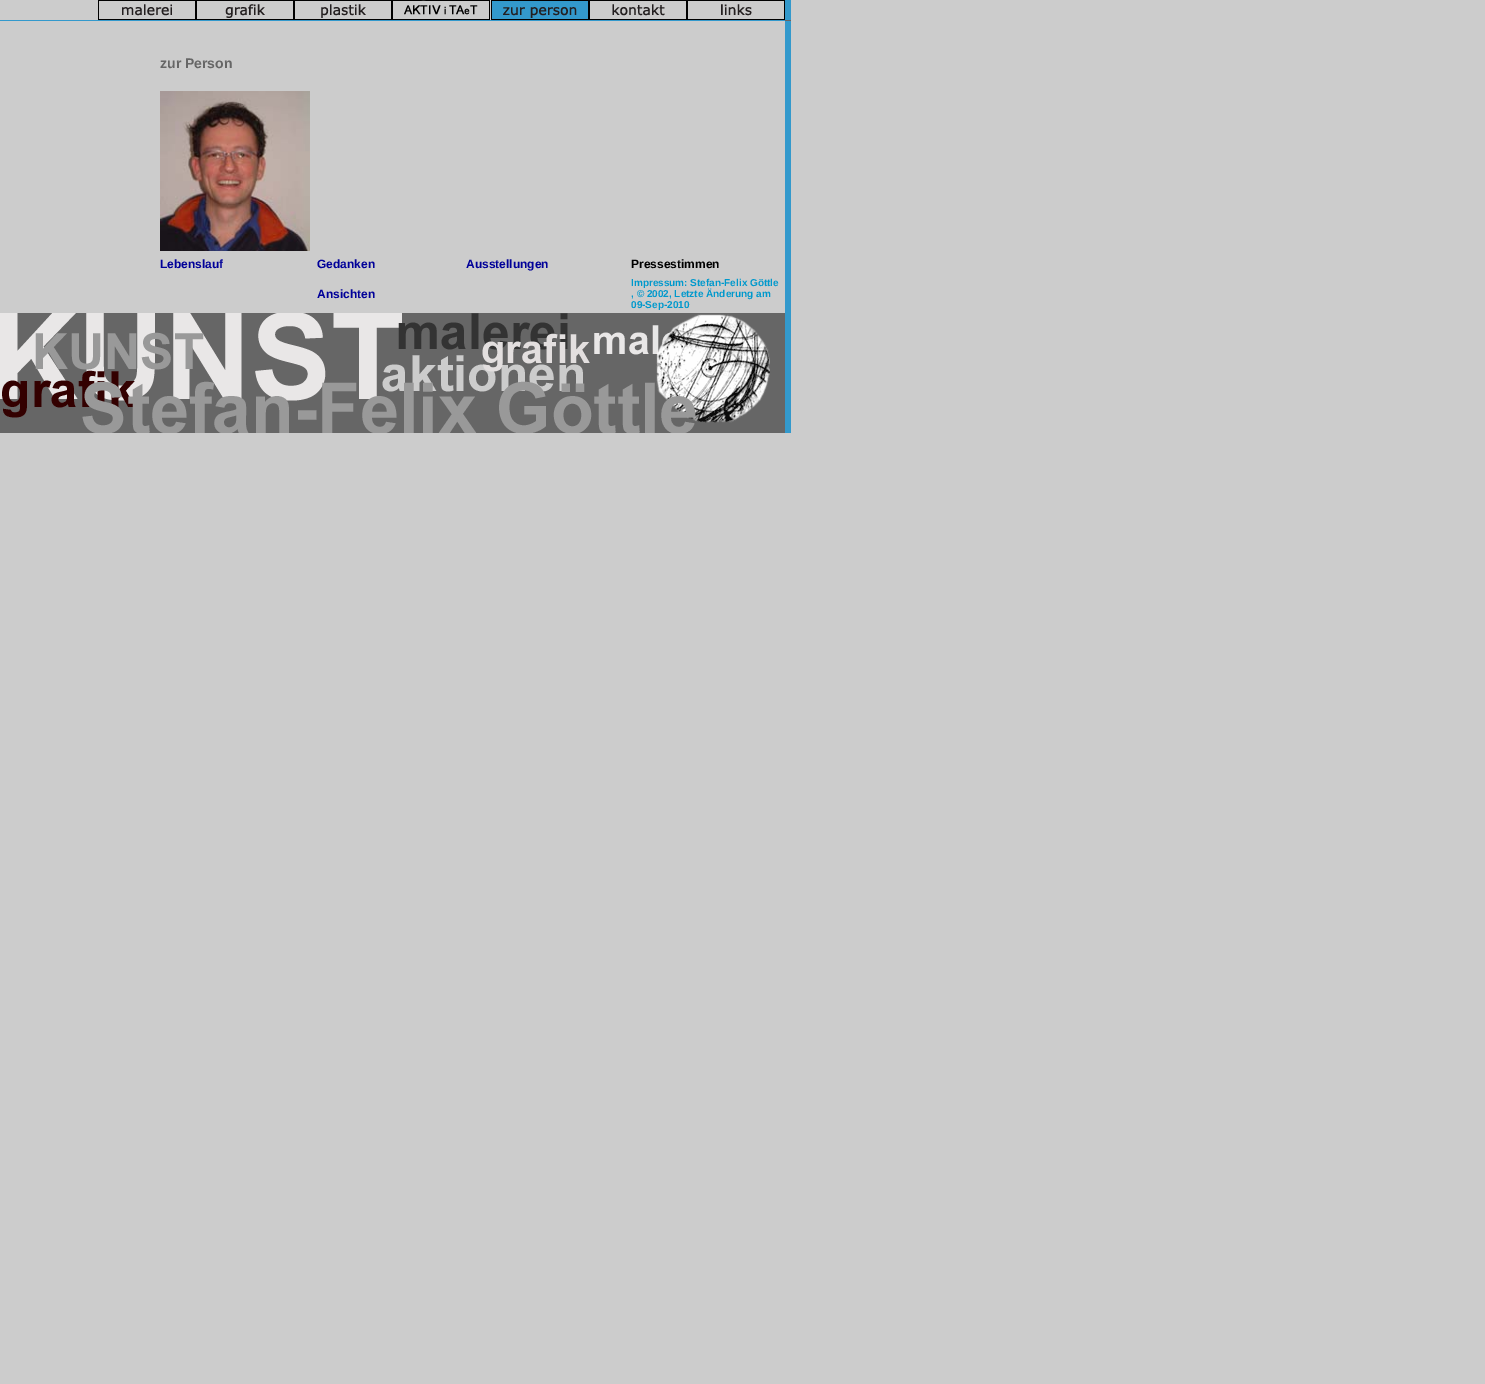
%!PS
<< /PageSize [1485 1384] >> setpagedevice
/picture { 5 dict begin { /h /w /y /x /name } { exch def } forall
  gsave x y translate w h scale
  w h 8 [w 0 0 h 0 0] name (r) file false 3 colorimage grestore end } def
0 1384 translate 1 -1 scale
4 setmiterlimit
0.8 setgray
0 0 1485 1384 rectfill
(img1.rgb) 98 0 98 20 picture
(img2.rgb) 196 0 98 20 picture
(img3.rgb) 294 0 98 20 picture
(img4.rgb) 392 0 98 20 picture
(img5.rgb) 491 0 98 20 picture
(img6.rgb) 589 0 98 20 picture
(img7.rgb) 687 0 98 20 picture
0.2 0.6 0.8 setrgbcolor
785 0 6 20 rectfill
0 20 785 1 rectfill
0.4 setgray
785 20 6 1 rectfill
/LiberationSans-Bold [14 0 0 -14 0 0] selectfont
160 68 moveto (zur Person) show
(img8.rgb) 160 91 150 160 picture
/LiberationSans-Bold [12 0 0 -12 0 0] selectfont
0 0 0.6 setrgbcolor
160 268 moveto (Lebenslauf) show
317 268 moveto (Gedanken) show
466 268 moveto (Ausstellungen) show
0 setgray
631 268 moveto (Pressestimmen) show
0 0 0.6 setrgbcolor
317 298 moveto (Ansichten) show
/LiberationSans-Bold [10 0 0 -10 0 0] selectfont
0 0.6 0.8 setrgbcolor
631 286 moveto (Impressum: Stefan-Felix Göttle) show
631 297 moveto (, © 2002, Letzte Änderung am) show
631 308 moveto (09-Sep-2010) show
0.2 0.6 0.8 setrgbcolor
785 21 6 412 rectfill
0.4 setgray
654 313 131 120 rectfill
(img9.rgb) 0 313 654 120 picture
(img10.rgb) 654 314 116 119 picture
showpage
